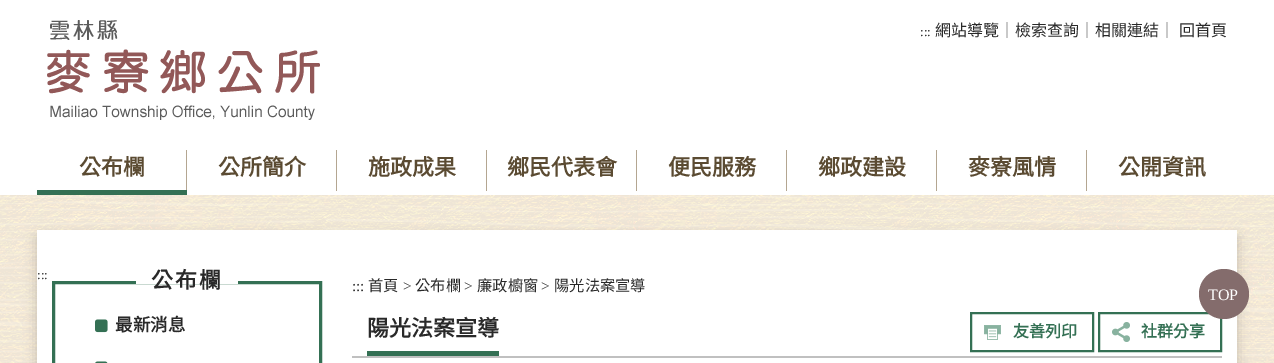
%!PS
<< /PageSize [1274 363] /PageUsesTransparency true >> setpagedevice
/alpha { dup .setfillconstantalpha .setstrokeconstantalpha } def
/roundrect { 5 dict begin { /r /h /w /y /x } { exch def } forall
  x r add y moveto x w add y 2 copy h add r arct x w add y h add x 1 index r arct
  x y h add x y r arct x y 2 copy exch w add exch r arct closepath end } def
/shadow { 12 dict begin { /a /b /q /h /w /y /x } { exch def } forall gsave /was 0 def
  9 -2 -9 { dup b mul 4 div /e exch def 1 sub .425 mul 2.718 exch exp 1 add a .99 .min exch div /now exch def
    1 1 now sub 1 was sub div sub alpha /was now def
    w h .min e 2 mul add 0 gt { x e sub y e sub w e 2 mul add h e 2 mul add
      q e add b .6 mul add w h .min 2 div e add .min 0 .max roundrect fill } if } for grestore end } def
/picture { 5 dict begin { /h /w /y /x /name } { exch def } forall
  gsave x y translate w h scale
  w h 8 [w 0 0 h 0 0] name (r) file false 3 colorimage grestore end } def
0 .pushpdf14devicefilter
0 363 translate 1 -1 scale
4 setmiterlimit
1 setgray
0 0 1274 363 rectfill
(img1.rgb) 0 195 1274 168 picture
(img2.rgb) 47 20 273 100 picture
/LiberationSerif-Regular [13 0 0 -13 0 0] selectfont
0.161 setgray
920 36 moveto (:::) show
/NotoSansCJKTC-Regular [16 0 0 -16 0 0] selectfont
935 36 moveto (網站導覽) show
0.2 setgray
999 36 moveto (｜) show
0.161 setgray
1015 36 moveto (檢索查詢) show
0.2 setgray
1079 36 moveto (｜) show
0.161 setgray
1095 36 moveto (相關連結) show
0.2 setgray
1159 36 moveto (｜) show
0.161 setgray
1179 36 moveto (回首頁) show
0.706 0.651 0.569 setrgbcolor
186 150 1 41 rectfill
0.204 0.439 0.329 setrgbcolor
37 190 150 5 rectfill
/NotoSansCJKTC-Bold [22 0 0 -22 0 0] selectfont
0.357 0.294 0.196 setrgbcolor
79 175 moveto (公布欄) show
0.706 0.651 0.569 setrgbcolor
336 150 1 41 rectfill
0.357 0.294 0.196 setrgbcolor
218 175 moveto (公所簡介) show
0.706 0.651 0.569 setrgbcolor
486 150 1 41 rectfill
0.357 0.294 0.196 setrgbcolor
368 175 moveto (施政成果) show
0.706 0.651 0.569 setrgbcolor
636 150 1 41 rectfill
0.357 0.294 0.196 setrgbcolor
507 175 moveto (鄉民代表會) show
0.706 0.651 0.569 setrgbcolor
786 150 1 41 rectfill
0.357 0.294 0.196 setrgbcolor
668 175 moveto (便民服務) show
0.706 0.651 0.569 setrgbcolor
936 150 1 41 rectfill
0.357 0.294 0.196 setrgbcolor
818 175 moveto (鄉政建設) show
0.706 0.651 0.569 setrgbcolor
1086 150 1 41 rectfill
0.357 0.294 0.196 setrgbcolor
968 175 moveto (麥寮風情) show
1118 175 moveto (公開資訊) show
0.706 0.678 0.635 setrgbcolor
37 237 1200 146 0 6.5 0.75 shadow
1 setgray
37 230 1200 133 rectfill
/LiberationSerif-Regular [13 0 0 -13 0 0] selectfont
0.2 setgray
37 279 moveto (:::) show
0.204 0.439 0.329 setrgbcolor
3 setlinewidth
53.5 282.5 267 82 rectstroke
1 setgray
136 281 102 3 rectfill
/NotoSansCJKTC-Bold [22 0 0 -22 0 0] selectfont
0.161 setgray
151 288 moveto 2 0 (公布欄) ashow
(img3.rgb) 95 319 13 14 picture
/NotoSansCJKTC-Bold [17.5 0 0 -17.5 0 0] selectfont
115 331 moveto (最新消息) show
(img4.rgb) 95 361 13 2 picture
/LiberationSerif-Regular [15.25 0 0 -15.25 0 0] selectfont
352 291 moveto (:::) show
/NotoSansCJKTC-Regular [15.25 0 0 -15.25 0 0] selectfont
368 291 moveto (首頁) show
/LiberationSerif-Regular [15.25 0 0 -15.25 0 0] selectfont
0.2 setgray
403 291 moveto (>) show
/NotoSansCJKTC-Regular [15.25 0 0 -15.25 0 0] selectfont
0.161 setgray
415 291 moveto (公布欄) show
/LiberationSerif-Regular [15.25 0 0 -15.25 0 0] selectfont
0.2 setgray
464 291 moveto (>) show
/NotoSansCJKTC-Regular [15.25 0 0 -15.25 0 0] selectfont
0.161 setgray
477 291 moveto (廉政櫥窗) show
/LiberationSerif-Regular [15.25 0 0 -15.25 0 0] selectfont
0.2 setgray
541 291 moveto (>) show
/NotoSansCJKTC-Regular [15.25 0 0 -15.25 0 0] selectfont
0.161 setgray
554 291 moveto (陽光法案宣導) show
0.753 setgray
352 356 870 2 rectfill
0.204 0.439 0.329 setrgbcolor
367 351 132 5 rectfill
/NotoSansCJKTC-Bold [22 0 0 -22 0 0] selectfont
0.161 setgray
367 336 moveto (陽光法案宣導) show
0.204 0.439 0.329 setrgbcolor
2 setlinewidth
971 313 122 38 rectstroke
(img5.rgb) 984 325 17 15 picture
/NotoSansCJKTC-Bold [16 0 0 -16 0 0] selectfont
1013 337 moveto (友善列印) show
1099 313 122 38 rectstroke
(img6.rgb) 1112 322 18 20 picture
1141 337 moveto (社群分享) show
0.518 0.424 0.424 setrgbcolor
newpath 1224 294 25 0 360 arc closepath fill
/LiberationSerif-Regular [16 0 0 -16 0 0] selectfont
1 setgray
1208 300 moveto (TOP) show
.poppdf14devicefilter showpage
